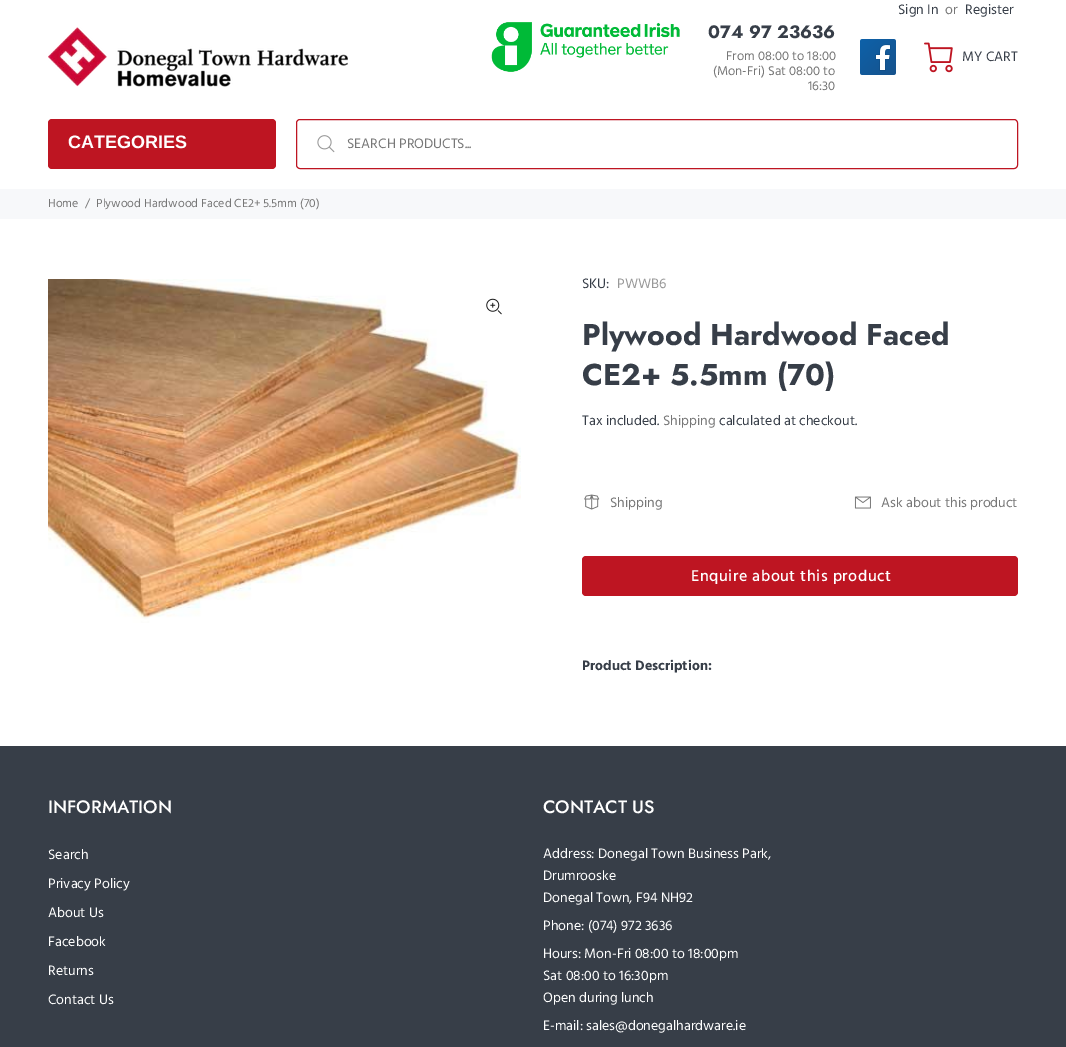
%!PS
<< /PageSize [1066 1047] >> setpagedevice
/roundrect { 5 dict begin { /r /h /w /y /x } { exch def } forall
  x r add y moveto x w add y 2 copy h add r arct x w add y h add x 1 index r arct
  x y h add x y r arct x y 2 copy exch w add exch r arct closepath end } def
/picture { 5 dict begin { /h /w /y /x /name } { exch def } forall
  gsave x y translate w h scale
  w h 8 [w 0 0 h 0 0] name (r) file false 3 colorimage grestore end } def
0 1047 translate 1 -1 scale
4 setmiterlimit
1 setgray
0 0 1066 1047 rectfill
/Hind-Regular [14 0 0 -14 0 0] selectfont
0.216 0.243 0.282 setrgbcolor
898 14 moveto (Sign In) show
0.467 setgray
945 14 moveto (or) show
0.216 0.243 0.282 setrgbcolor
965 14 moveto (Register) show
(img1.rgb) 48 27 300 60 picture
(img2.rgb) 491 22 189 50 picture
/Jost-Bold [18 0 0 -18 0 0] selectfont
708 38 moveto (074 97 23636) show
/Hind-Regular [13 0 0 -13 0 0] selectfont
0.467 setgray
726 60 moveto (From 08:00 to 18:00) show
713 75 moveto (\(Mon-Fri\) Sat 08:00 to) show
808 90 moveto (16:30) show
(img3.rgb) 860 39 36 36 picture
(img4.rgb) 924 42 29 31 picture
/Hind-Regular [14 0 0 -14 0 0] selectfont
0.216 0.243 0.282 setrgbcolor
962 61 moveto (MY CART) show
0.745 0.082 0.133 setrgbcolor
48 119 228 50 4 roundrect fill
/LiberationSans-Bold [18 0 0 -18 0 0] selectfont
1 setgray
68 148 moveto (CATEGORIES) show
0.745 0.082 0.133 setrgbcolor
296.5 119.5 721 49 3.5 roundrect stroke
(img5.rgb) 317 135 18 18 picture
/Hind-Regular [14 0 0 -14 0 0] selectfont
0.467 setgray
347 148 moveto (SEARCH PRODUCTS...) show
0.969 0.973 0.98 setrgbcolor
0 189 1066 30 rectfill
/Hind-Regular [12 0 0 -12 0 0] selectfont
0.467 setgray
48 207 moveto (Home) show
85 207 moveto (/) show
96 207 moveto (Plywood Hardwood Faced CE2+ 5.5mm \(70\)) show
(img6.rgb) 48 279 473 344 picture
(img7.rgb) 486 298 16 17 picture
/Hind-Regular [14 0 0 -14 0 0] selectfont
0.216 0.243 0.282 setrgbcolor
582 288 moveto (SKU:) show
0.6 setgray
617 288 moveto (PWWB6) show
/Jost-Bold [30 0 0 -30 0 0] selectfont
0.216 0.243 0.282 setrgbcolor
582 345 moveto (Plywood Hardwood Faced) show
582 385 moveto (CE2+ 5.5mm \(70\)) show
/Hind-Regular [14 0 0 -14 0 0] selectfont
582 425 moveto (Tax included.) show
0.467 setgray
663 425 moveto (Shipping) show
0.216 0.243 0.282 setrgbcolor
719 425 moveto (calculated at checkout.) show
(img8.rgb) 584 494 16 16 picture
0.467 setgray
610 507 moveto (Shipping) show
(img9.rgb) 854 496 17 13 picture
881 507 moveto (Ask about this product) show
0.745 0.082 0.133 setrgbcolor
582 556 436 40 4 roundrect fill
/Hind-Medium [16 0 0 -16 0 0] selectfont
1 setgray
691 581 moveto 0.55 0 (Enquire about this product) ashow
/Hind-Bold [14 0 0 -14 0 0] selectfont
0.216 0.243 0.282 setrgbcolor
582 670 moveto (Product Description:) show
0 746 1066 301 rectfill
/Jost-Medium [18 0 0 -18 0 0] selectfont
1 setgray
48 813 moveto (INFORMATION) show
/Hind-Regular [14 0 0 -14 0 0] selectfont
48 859 moveto (Search) show
48 888 moveto (Privacy Policy) show
48 917 moveto (About Us) show
48 946 moveto (Facebook) show
48 975 moveto (Returns) show
48 1004 moveto (Contact Us) show
/Jost-Medium [18 0 0 -18 0 0] selectfont
543 813 moveto (CONTACT US) show
/Hind-Regular [14 0 0 -14 0 0] selectfont
543 858 moveto (Address: Donegal Town Business Park,) show
543 880 moveto (Drumrooske) show
543 902 moveto (Donegal Town, F94 NH92) show
543 930 moveto (Phone: \(074\) 972 3636) show
543 958 moveto (Hours: Mon-Fri 08:00 to 18:00pm) show
543 980 moveto (Sat 08:00 to 16:30pm) show
543 1002 moveto (Open during lunch) show
543 1030 moveto (E-mail:) show
586 1030 moveto (sales@donegalhardware.ie) show
showpage
